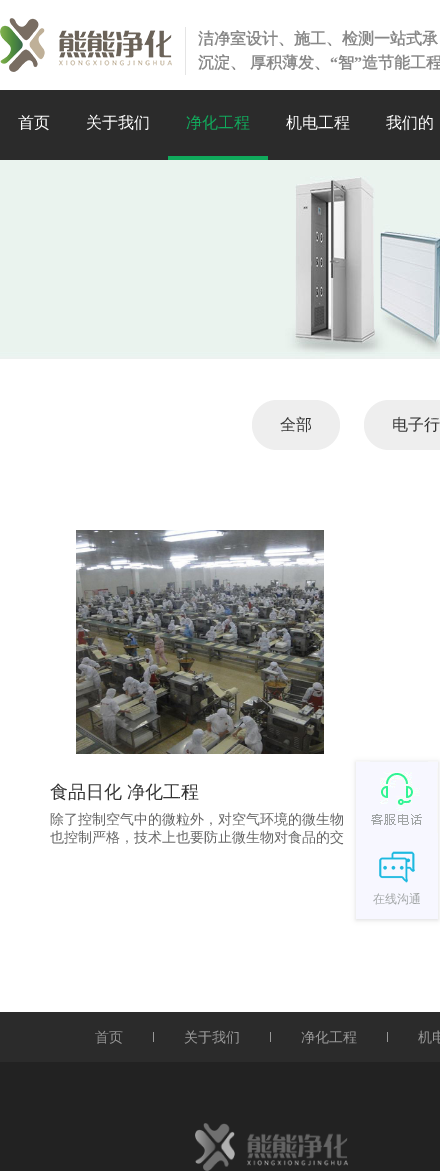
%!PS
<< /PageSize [440 1171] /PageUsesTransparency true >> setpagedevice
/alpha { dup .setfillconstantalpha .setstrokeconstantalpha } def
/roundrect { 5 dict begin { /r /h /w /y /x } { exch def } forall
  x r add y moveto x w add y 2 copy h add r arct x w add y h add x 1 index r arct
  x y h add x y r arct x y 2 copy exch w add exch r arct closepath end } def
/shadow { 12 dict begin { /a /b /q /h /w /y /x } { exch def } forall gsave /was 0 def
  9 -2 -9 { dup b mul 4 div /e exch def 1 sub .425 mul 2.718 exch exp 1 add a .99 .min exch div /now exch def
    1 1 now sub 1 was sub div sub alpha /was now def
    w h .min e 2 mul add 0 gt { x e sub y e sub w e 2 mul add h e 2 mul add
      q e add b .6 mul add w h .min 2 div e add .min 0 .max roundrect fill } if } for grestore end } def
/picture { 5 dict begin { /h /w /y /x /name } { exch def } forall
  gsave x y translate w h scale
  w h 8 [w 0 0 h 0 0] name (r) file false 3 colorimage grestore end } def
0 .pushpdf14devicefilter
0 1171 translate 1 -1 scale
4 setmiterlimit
1 setgray
0 0 440 1171 rectfill
(img1.rgb) 0 18 172 54 picture
0.898 setgray
185 27 1 48 rectfill
/WenQuanYiZenHei-Bold [16 0 0 -16 0 0] selectfont
0.533 setgray
198 44 moveto (洁净室设计、施工、检测一站式承) show
198 68 moveto -1 0 32 (沉淀、 厚积薄发、) widthshow
/LiberationSerif-Bold [16 0 0 -16 0 0] selectfont
330 68 moveto (“) show
/WenQuanYiZenHei-Bold [16 0 0 -16 0 0] selectfont
338 68 moveto (智) show
/LiberationSerif-Bold [16 0 0 -16 0 0] selectfont
354 68 moveto (”) show
/WenQuanYiZenHei-Bold [16 0 0 -16 0 0] selectfont
362 68 moveto (造节能工程) show
0.169 setgray
0 90 440 70 rectfill
/WenQuanYiZenHei-Medium [16 0 0 -16 0 0] selectfont
1 setgray
18 128 moveto (首页) show
86 128 moveto (关于我们) show
0.063 0.667 0.361 setrgbcolor
168 156 100 4 rectfill
186 128 moveto (净化工程) show
1 setgray
286 128 moveto (机电工程) show
386 128 moveto (我们的) show
(img2.rgb) 0 160 440 199 picture
0.933 setgray
252 400 88 50 25 roundrect fill
0.2 setgray
280 430 moveto (全部) show
0.933 setgray
364 400 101 50 25 roundrect fill
0.2 setgray
392 430 moveto (电子行) show
(img3.rgb) 76 530 248 224 picture
/WenQuanYiZenHei-Medium [18 0 0 -18 0 0] selectfont
50 798 moveto (食品日化 净化工程) show
/WenQuanYiZenHei-Medium [14 0 0 -14 0 0] selectfont
0.4 setgray
50 824 moveto (除了控制空气中的微粒外，对空气环境的微生物) show
50 842 moveto (也控制严格，技术上也要防止微生物对食品的交) show
0.867 setgray
356 762 82 158 0 2.5 1 shadow
(img4.rgb) 356 761 82 76 picture
0.969 0.969 1 setrgbcolor
356 837 82 82 rectfill
(img5.rgb) 379 851 36 32 picture
/WenQuanYiZenHei-Medium [12 0 0 -12 0 0] selectfont
0.631 0.647 0.647 setrgbcolor
373 903 moveto (在线沟通) show
0.169 setgray
0 1012 440 50 rectfill
/WenQuanYiZenHei-Medium [14 0 0 -14 0 0] selectfont
0.6 setgray
95 1042 moveto (首页) show
153 1032 1 10 rectfill
184 1042 moveto (关于我们) show
270 1032 1 10 rectfill
301 1042 moveto (净化工程) show
387 1032 1 10 rectfill
418 1042 moveto (机电) show
0.133 setgray
0 1062 440 109 rectfill
(img6.rgb) 195 1123 153 48 picture
.poppdf14devicefilter showpage
